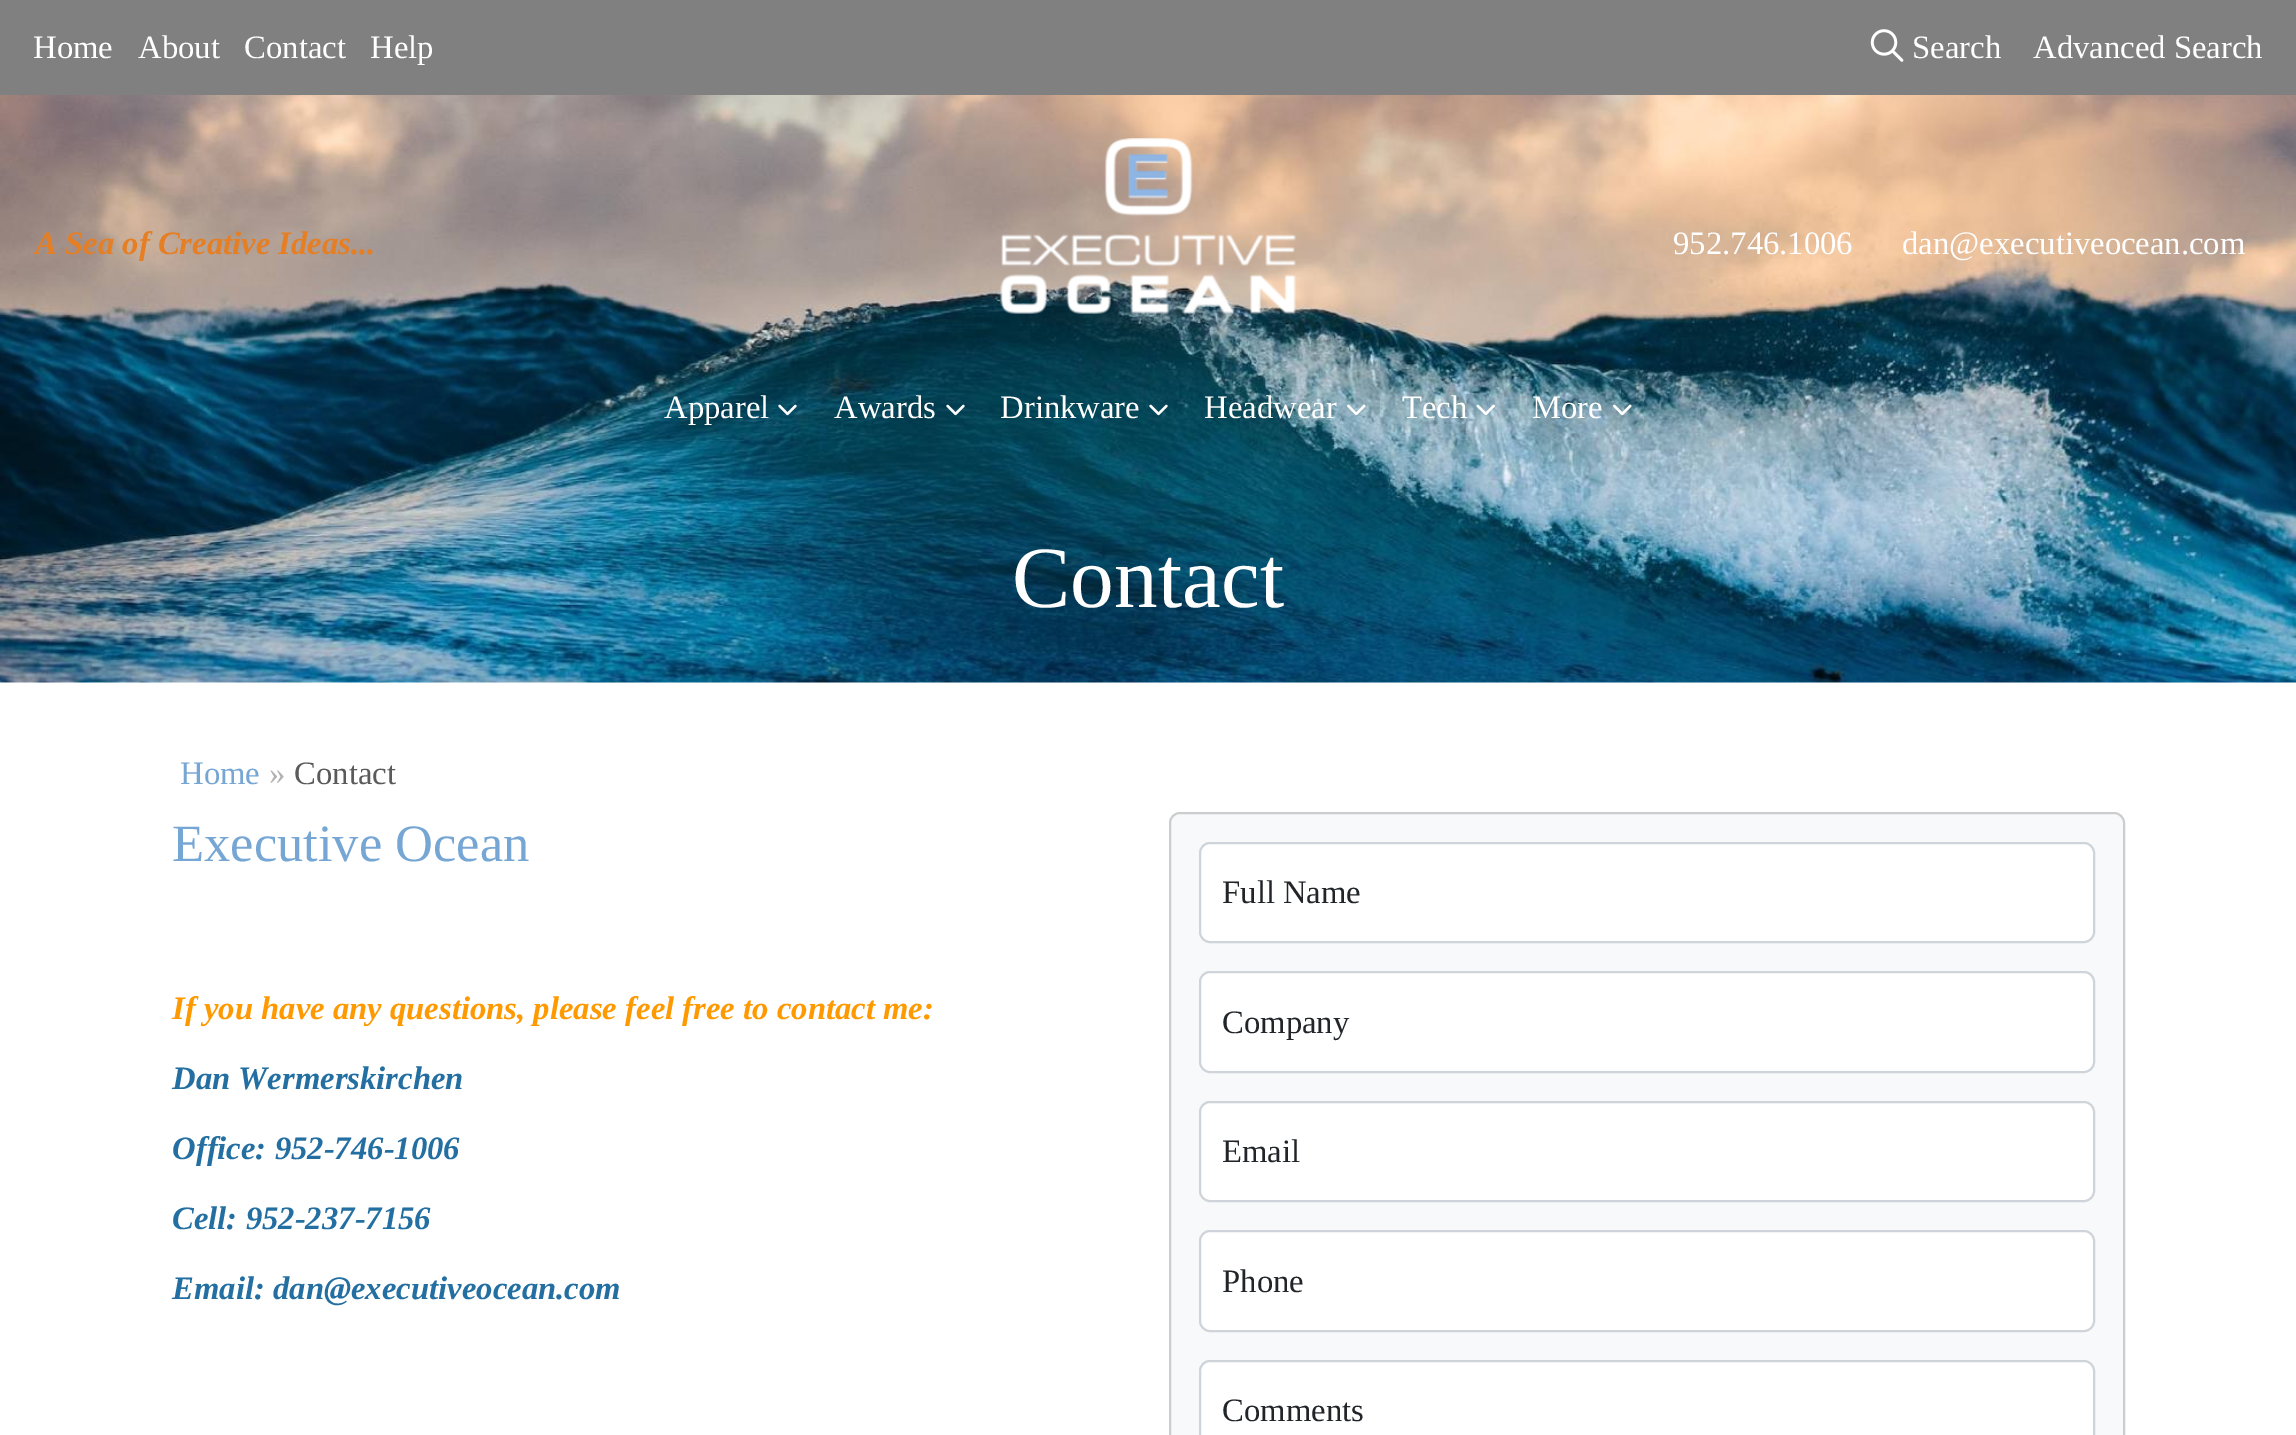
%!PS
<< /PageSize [2296 1435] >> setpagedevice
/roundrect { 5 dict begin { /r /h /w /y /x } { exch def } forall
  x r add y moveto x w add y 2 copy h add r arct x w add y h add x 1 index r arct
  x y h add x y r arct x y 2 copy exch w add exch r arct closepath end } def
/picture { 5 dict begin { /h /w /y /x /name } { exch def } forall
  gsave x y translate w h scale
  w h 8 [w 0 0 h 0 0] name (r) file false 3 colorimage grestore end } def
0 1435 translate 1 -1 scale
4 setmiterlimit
1 setgray
0 0 2296 1435 rectfill
0.502 setgray
0 0 2296 95 rectfill
/LiberationSerif-Regular [32.7 0 0 -32.7 0 0] selectfont
1 setgray
33 58 moveto (Home) show
138 58 moveto (About) show
244 58 moveto (Contact) show
370 58 moveto (Help) show
(img1.rgb) 1870 29 34 33 picture
1912 58 moveto (Search) show
2033 58 moveto (Advanced Search) show
(img9.rgb) 0 95 2296 588 picture
/LiberationSerif-BoldItalic [32.7 0 0 -32.7 0 0] selectfont
0.902 0.494 0.137 setrgbcolor
35 254 moveto (A Sea of Creative Ideas...) show
(img2.rgb) 1000 138 296 176 picture
/LiberationSerif-Regular [32.7 0 0 -32.7 0 0] selectfont
1 setgray
1673 254 moveto (952.746.1006) show
1902 254 moveto (dan@executiveocean.com) show
664 418 moveto (Apparel) show
(img3.rgb) 778 404 19 12 picture
834 418 moveto (Awards) show
(img4.rgb) 946 404 19 12 picture
1000 418 moveto (Drinkware) show
(img5.rgb) 1149 404 19 12 picture
1204 418 moveto (Headwear) show
(img6.rgb) 1347 404 19 12 picture
1402 418 moveto (Tech) show
(img7.rgb) 1476 404 19 12 picture
1532 418 moveto (More) show
(img8.rgb) 1613 404 19 12 picture
/LiberationSerif-Regular [87.5 0 0 -87.5 0 0] selectfont
1012 607 moveto (Contact) show
/LiberationSerif-Regular [32.7 0 0 -32.7 0 0] selectfont
0.463 0.651 0.831 setrgbcolor
180 784 moveto (Home) show
0.698 0.694 0.694 setrgbcolor
269 784 moveto (») show
0.357 0.353 0.353 setrgbcolor
294 784 moveto (Contact) show
/LiberationSerif-Regular [52.5 0 0 -52.5 0 0] selectfont
0.463 0.651 0.831 setrgbcolor
172 861 moveto (Executive Ocean) show
/LiberationSerif-BoldItalic [32.7 0 0 -32.7 0 0] selectfont
1 0.6 0 setrgbcolor
172 1019 moveto (If you have any questions, please feel free to contact me:) show
0.137 0.435 0.631 setrgbcolor
172 1089 moveto (Dan Wermerskirchen) show
172 1159 moveto (Office: 952-746-1006) show
172 1229 moveto (Cell: 952-237-7156) show
172 1299 moveto (Email: dan@executiveocean.com) show
0.973 0.976 0.98 setrgbcolor
1170 813 954 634 10 roundrect gsave fill grestore
0.8 0.804 0.808 setrgbcolor
2 setlinewidth
stroke
1 setgray
1200 843 894 99 10 roundrect gsave fill grestore
0.808 0.831 0.855 setrgbcolor
stroke
/LiberationSerif-Regular [32.7 0 0 -32.7 0 0] selectfont
0.129 0.145 0.161 setrgbcolor
1222 903 moveto (Full Name) show
1 setgray
1200 972 894 100 10 roundrect gsave fill grestore
0.808 0.831 0.855 setrgbcolor
stroke
0.129 0.145 0.161 setrgbcolor
1222 1033 moveto (Company) show
1 setgray
1200 1102 894 99 10 roundrect gsave fill grestore
0.808 0.831 0.855 setrgbcolor
stroke
0.129 0.145 0.161 setrgbcolor
1222 1162 moveto (Email) show
1 setgray
1200 1231 894 100 10 roundrect gsave fill grestore
0.808 0.831 0.855 setrgbcolor
stroke
0.129 0.145 0.161 setrgbcolor
1222 1292 moveto (Phone) show
1 setgray
1201 1362 892 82 9 roundrect fill
0.808 0.831 0.855 setrgbcolor
1200 1361 894 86 10 roundrect stroke
0.129 0.145 0.161 setrgbcolor
1222 1421 moveto (Comments) show
showpage
